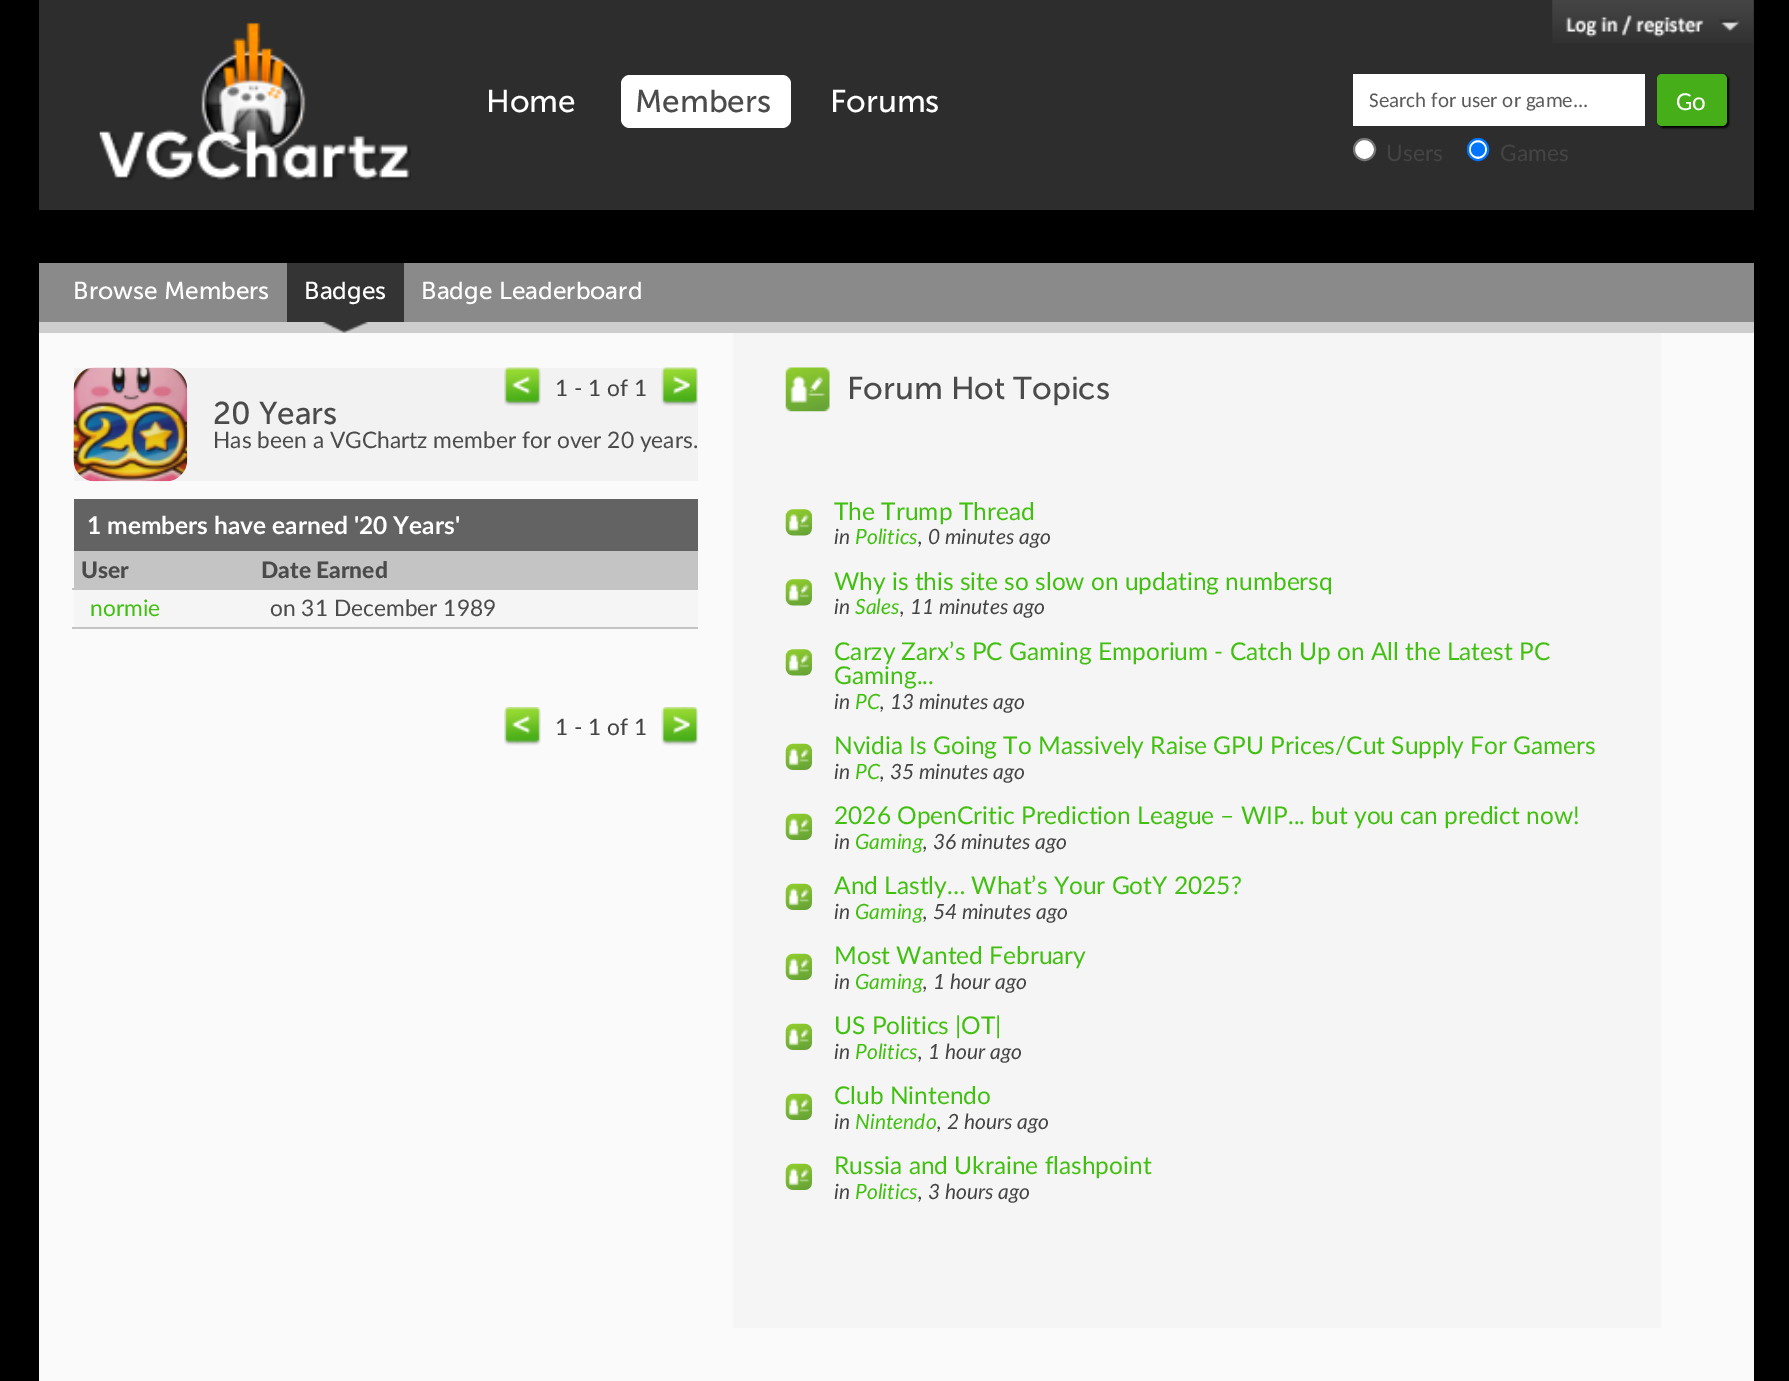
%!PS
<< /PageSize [1789 1381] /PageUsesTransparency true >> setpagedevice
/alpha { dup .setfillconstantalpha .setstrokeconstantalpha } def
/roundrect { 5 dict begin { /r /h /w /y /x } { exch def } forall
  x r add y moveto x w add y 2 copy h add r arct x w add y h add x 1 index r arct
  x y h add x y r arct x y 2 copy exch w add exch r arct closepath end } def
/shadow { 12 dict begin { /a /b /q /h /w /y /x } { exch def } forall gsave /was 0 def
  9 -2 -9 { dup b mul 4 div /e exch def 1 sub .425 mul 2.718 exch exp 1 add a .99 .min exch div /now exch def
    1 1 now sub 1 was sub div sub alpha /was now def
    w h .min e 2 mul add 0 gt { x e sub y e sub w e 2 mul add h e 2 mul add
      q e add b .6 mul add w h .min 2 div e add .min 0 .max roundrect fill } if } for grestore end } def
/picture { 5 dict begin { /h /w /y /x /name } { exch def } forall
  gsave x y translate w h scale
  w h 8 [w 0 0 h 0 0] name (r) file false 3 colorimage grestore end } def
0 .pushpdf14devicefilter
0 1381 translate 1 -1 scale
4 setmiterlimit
0 setgray
0 0 1789 1381 rectfill
0.176 setgray
39 0 1715 210 rectfill
(img1.rgb) 1552 0 202 43 picture
(img2.rgb) 99 22 312 159 picture
/MuseoSans-Regular [31.5 0 0 -31.5 0 0] selectfont
1 setgray
486 112 moveto (Home) show
621 75 170 53 9 roundrect fill
0.294 setgray
635 112 moveto (Members) show
1 setgray
830 112 moveto (Forums) show
1353 74 292 52 rectfill
/Carlito-Regular [21 0 0 -21 0 0] selectfont
0.353 setgray
1369 107 moveto (Search for user or game...) show
0 setgray
1659 75 70 53 5 1 1 shadow
0.271 0.682 0.094 setrgbcolor
1657 74 70 52 5 roundrect fill
/Carlito-Regular [26 0 0 -26 0 0] selectfont
1 setgray
1676 110 moveto (Go) show
newpath 1364.5 149.5 10.5 0 360 arc closepath gsave fill grestore
0.463 setgray
2 setlinewidth
stroke
/Lato-Regular [22.75 0 0 -22.75 0 0] selectfont
0.267 setgray
1386 161 moveto (Users) show
1 setgray
1468 139 20 21 10 roundrect gsave fill grestore
0 0.459 1 setrgbcolor
stroke
newpath 1478 149.5 7 0 360 arc closepath fill
0.267 setgray
1500 161 moveto (Games) show
0.98 setgray
39 333 1715 1048 rectfill
0.541 setgray
39 263 1715 59 rectfill
0.804 setgray
39 322 1715 11 rectfill
/MuseoSans-Regular [24.5 0 0 -24.5 0 0] selectfont
1 setgray
73 299 moveto (Browse Members) show
0.204 setgray
287 263 117 59 rectfill
1 setgray
304 299 moveto (Badges) show
(img3.rgb) 322 322 46 11 picture
421 299 moveto (Badge Leaderboard) show
0.949 setgray
74 368 624 113 rectfill
(img4.rgb) 504 367 37 39 picture
/Lato-Regular [22.75 0 0 -22.75 0 0] selectfont
0.267 setgray
555 396 moveto (1 - 1 of 1) show
(img5.rgb) 661 367 37 39 picture
(img6.rgb) 73 367 115 115 picture
/MuseoSans-Regular [31.5 0 0 -31.5 0 0] selectfont
0.294 setgray
213 424 moveto (20 Years) show
/Lato-Regular [22.75 0 0 -22.75 0 0] selectfont
213 448 moveto (Has been a VGChartz member for over 20 years.) show
0.388 setgray
74 499 624 52 rectfill
/Lato-Bold [24.5 0 0 -24.5 0 0] selectfont
1 setgray
87 534 moveto (1 members have earned '20 Years') show
0.769 setgray
74 551 624 37 rectfill
72 588 626 2 rectfill
/Lato-Black [22.75 0 0 -22.75 0 0] selectfont
0.294 setgray
81 578 moveto (User) show
261 578 moveto (Date Earned) show
0.961 setgray
74 590 624 37 rectfill
0.769 setgray
72 627 626 2 rectfill
/Lato-Regular [22.75 0 0 -22.75 0 0] selectfont
0.259 0.753 0.067 setrgbcolor
90 616 moveto (normie) show
0.294 setgray
270 616 moveto (on 31 December 1989) show
(img7.rgb) 504 707 37 39 picture
0.267 setgray
555 735 moveto (1 - 1 of 1) show
(img8.rgb) 661 707 37 39 picture
0.961 setgray
733 333 928 995 rectfill
(img9.rgb) 785 367 45 45 picture
/MuseoSans-Regular [31.5 0 0 -31.5 0 0] selectfont
0.294 setgray
847 399 moveto (Forum Hot Topics) show
(img10.rgb) 785 509 27 27 picture
/Lato-Regular [24.5 0 0 -24.5 0 0] selectfont
0.259 0.753 0.067 setrgbcolor
834 520 moveto (The Trump Thread) show
/Lato-Italic [21 0 0 -21 0 0] selectfont
0.267 setgray
834 544 moveto (in) show
0.259 0.753 0.067 setrgbcolor
855 544 moveto (Politics) show
0.267 setgray
918 544 moveto (, 0 minutes ago) show
(img10.rgb) 785 579 27 27 picture
/Lato-Regular [24.5 0 0 -24.5 0 0] selectfont
0.259 0.753 0.067 setrgbcolor
834 590 moveto (Why is this site so slow on updating numbersq) show
/Lato-Italic [21 0 0 -21 0 0] selectfont
0.267 setgray
834 614 moveto (in) show
0.259 0.753 0.067 setrgbcolor
855 614 moveto (Sales) show
0.267 setgray
900 614 moveto (, 11 minutes ago) show
(img10.rgb) 785 649 27 27 picture
/Lato-Regular [24.5 0 0 -24.5 0 0] selectfont
0.259 0.753 0.067 setrgbcolor
834 660 moveto (Carzy Zarx’s PC Gaming Emporium - Catch Up on All the Latest PC) show
834 684 moveto (Gaming...) show
/Lato-Italic [21 0 0 -21 0 0] selectfont
0.267 setgray
834 709 moveto (in) show
0.259 0.753 0.067 setrgbcolor
855 709 moveto (PC) show
0.267 setgray
880 709 moveto (, 13 minutes ago) show
(img11.rgb) 785 743 27 27 picture
/Lato-Regular [24.5 0 0 -24.5 0 0] selectfont
0.259 0.753 0.067 setrgbcolor
834 754 moveto (Nvidia Is Going To Massively Raise GPU Prices/Cut Supply For Gamers) show
/Lato-Italic [21 0 0 -21 0 0] selectfont
0.267 setgray
834 779 moveto (in) show
0.259 0.753 0.067 setrgbcolor
855 779 moveto (PC) show
0.267 setgray
880 779 moveto (, 35 minutes ago) show
(img11.rgb) 785 813 27 27 picture
/Lato-Regular [24.5 0 0 -24.5 0 0] selectfont
0.259 0.753 0.067 setrgbcolor
834 824 moveto (2026 OpenCritic Prediction League – WIP... but you can predict now!) show
/Lato-Italic [21 0 0 -21 0 0] selectfont
0.267 setgray
834 849 moveto (in) show
0.259 0.753 0.067 setrgbcolor
855 849 moveto (Gaming) show
0.267 setgray
923 849 moveto (, 36 minutes ago) show
(img11.rgb) 785 883 27 27 picture
/Lato-Regular [24.5 0 0 -24.5 0 0] selectfont
0.259 0.753 0.067 setrgbcolor
834 894 moveto (And Lastly… What’s Your GotY 2025?) show
/Lato-Italic [21 0 0 -21 0 0] selectfont
0.267 setgray
834 919 moveto (in) show
0.259 0.753 0.067 setrgbcolor
855 919 moveto (Gaming) show
0.267 setgray
923 919 moveto (, 54 minutes ago) show
(img11.rgb) 785 953 27 27 picture
/Lato-Regular [24.5 0 0 -24.5 0 0] selectfont
0.259 0.753 0.067 setrgbcolor
834 964 moveto (Most Wanted February) show
/Lato-Italic [21 0 0 -21 0 0] selectfont
0.267 setgray
834 989 moveto (in) show
0.259 0.753 0.067 setrgbcolor
855 989 moveto (Gaming) show
0.267 setgray
923 989 moveto (, 1 hour ago) show
(img11.rgb) 785 1023 27 27 picture
/Lato-Regular [24.5 0 0 -24.5 0 0] selectfont
0.259 0.753 0.067 setrgbcolor
834 1034 moveto (US Politics |OT|) show
/Lato-Italic [21 0 0 -21 0 0] selectfont
0.267 setgray
834 1059 moveto (in) show
0.259 0.753 0.067 setrgbcolor
855 1059 moveto (Politics) show
0.267 setgray
918 1059 moveto (, 1 hour ago) show
(img11.rgb) 785 1093 27 27 picture
/Lato-Regular [24.5 0 0 -24.5 0 0] selectfont
0.259 0.753 0.067 setrgbcolor
834 1104 moveto (Club Nintendo) show
/Lato-Italic [21 0 0 -21 0 0] selectfont
0.267 setgray
834 1129 moveto (in) show
0.259 0.753 0.067 setrgbcolor
855 1129 moveto (Nintendo) show
0.267 setgray
937 1129 moveto (, 2 hours ago) show
(img11.rgb) 785 1163 27 27 picture
/Lato-Regular [24.5 0 0 -24.5 0 0] selectfont
0.259 0.753 0.067 setrgbcolor
834 1174 moveto (Russia and Ukraine flashpoint) show
/Lato-Italic [21 0 0 -21 0 0] selectfont
0.267 setgray
834 1199 moveto (in) show
0.259 0.753 0.067 setrgbcolor
855 1199 moveto (Politics) show
0.267 setgray
918 1199 moveto (, 3 hours ago) show
.poppdf14devicefilter showpage
